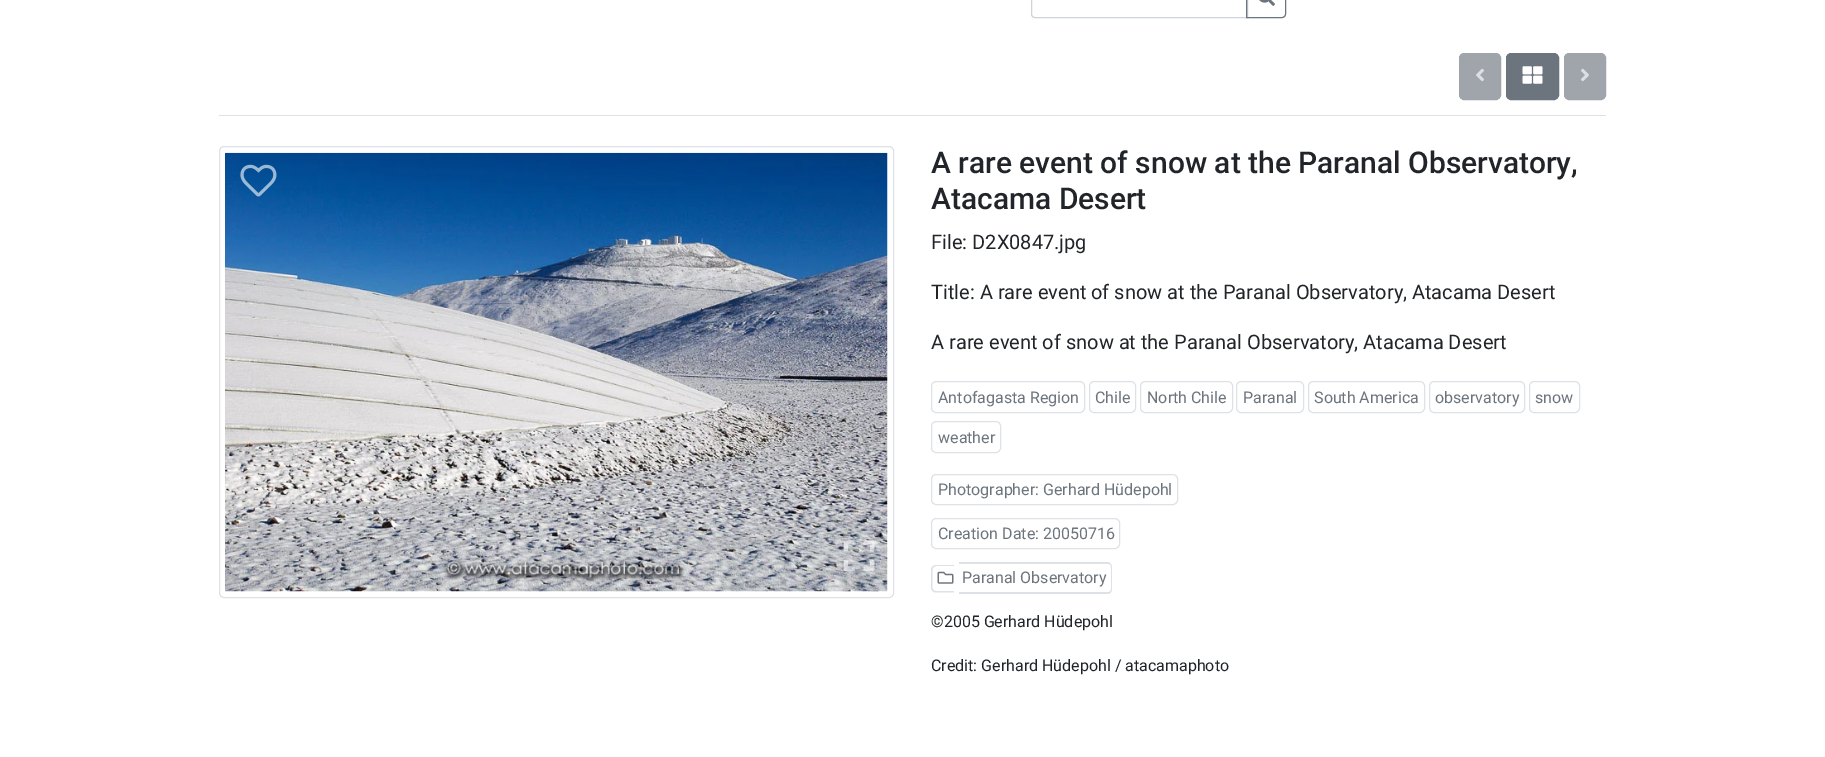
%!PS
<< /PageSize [1825 757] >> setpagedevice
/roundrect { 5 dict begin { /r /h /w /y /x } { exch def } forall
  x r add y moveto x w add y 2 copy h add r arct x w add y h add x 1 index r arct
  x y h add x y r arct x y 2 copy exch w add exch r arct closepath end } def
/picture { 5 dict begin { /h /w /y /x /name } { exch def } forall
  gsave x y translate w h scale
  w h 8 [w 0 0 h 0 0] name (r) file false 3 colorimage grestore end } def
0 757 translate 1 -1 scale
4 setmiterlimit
1 setgray
0 0 1825 757 rectfill
0.808 0.831 0.855 setrgbcolor
newpath 1035 -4.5 moveto 1247.5 -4.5 lineto 1247.5 17.5 lineto 1035 17.5 lineto 1033 17.5 1031.5 16 1031.5 14 curveto 1031.5 -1 lineto 1031.5 -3 1033 -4.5 1035 -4.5 curveto closepath stroke
0.424 0.459 0.49 setrgbcolor
newpath 1246.5 -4.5 moveto 1282 -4.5 lineto 1284 -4.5 1285.5 -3 1285.5 -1 curveto 1285.5 14 lineto 1285.5 16 1284 17.5 1282 17.5 curveto 1246.5 17.5 lineto closepath stroke
(img1.rgb) 1259 0 16 6 picture
0.871 0.886 0.902 setrgbcolor
219 115 1387 1 rectfill
0.624 0.647 0.671 setrgbcolor
1459.5 53.5 41 46 4.5 roundrect gsave fill grestore
stroke
(img2.rgb) 1476 68 8 14 picture
0.424 0.459 0.49 setrgbcolor
1506.5 53.5 52 46 4.5 roundrect gsave fill grestore
stroke
(img3.rgb) 1522 66 21 18 picture
0.624 0.647 0.671 setrgbcolor
1564.5 53.5 41 46 4.5 roundrect gsave fill grestore
stroke
(img4.rgb) 1581 68 8 14 picture
0.871 0.886 0.902 setrgbcolor
219.5 146.5 674 451 4.5 roundrect stroke
(img5.rgb) 225 152 663 440 picture
(img6.rgb) 240 164 37 33 picture
(img7.rgb) 843 540 32 31 picture
/Roboto-Medium [30 0 0 -30 0 0] selectfont
0.129 0.145 0.161 setrgbcolor
931 173 moveto (A rare event of snow at the Paranal Observatory,) show
931 209 moveto (Atacama Desert) show
/Roboto-Regular [20 0 0 -20 0 0] selectfont
931 249 moveto (File: D2X0847.jpg) show
931 299 moveto (Title: A rare event of snow at the Paranal Observatory, Atacama Desert) show
931 349 moveto (A rare event of snow at the Paranal Observatory, Atacama Desert) show
0.871 0.886 0.902 setrgbcolor
931.5 381.5 153 31 4.5 roundrect stroke
/Roboto-Regular [16 0 0 -16 0 0] selectfont
0.424 0.459 0.49 setrgbcolor
938 403 moveto (Antofagasta Region) show
0.871 0.886 0.902 setrgbcolor
1089.5 381.5 46 31 4.5 roundrect stroke
0.424 0.459 0.49 setrgbcolor
1095 403 moveto (Chile) show
0.871 0.886 0.902 setrgbcolor
1140.5 381.5 92 31 4.5 roundrect stroke
0.424 0.459 0.49 setrgbcolor
1147 403 moveto (North Chile) show
0.871 0.886 0.902 setrgbcolor
1236.5 381.5 67 31 4.5 roundrect stroke
0.424 0.459 0.49 setrgbcolor
1243 403 moveto (Paranal) show
0.871 0.886 0.902 setrgbcolor
1308.5 381.5 116 31 4.5 roundrect stroke
0.424 0.459 0.49 setrgbcolor
1314 403 moveto (South America) show
0.871 0.886 0.902 setrgbcolor
1429.5 381.5 95 31 4.5 roundrect stroke
0.424 0.459 0.49 setrgbcolor
1435 403 moveto (observatory) show
0.871 0.886 0.902 setrgbcolor
1529.5 381.5 50 31 4.5 roundrect stroke
0.424 0.459 0.49 setrgbcolor
1535 403 moveto (snow) show
0.871 0.886 0.902 setrgbcolor
931.5 421.5 69 31 4.5 roundrect stroke
0.424 0.459 0.49 setrgbcolor
938 443 moveto (weather) show
0.871 0.886 0.902 setrgbcolor
931.5 474.5 246 30 4.5 roundrect stroke
0.424 0.459 0.49 setrgbcolor
938 495 moveto (Photographer: Gerhard Hüdepohl) show
0.871 0.886 0.902 setrgbcolor
931.5 518.5 188 30 4.5 roundrect stroke
0.424 0.459 0.49 setrgbcolor
938 539 moveto (Creation Date: 20050716) show
0.871 0.886 0.902 setrgbcolor
newpath 936 565 moveto 954 565 lineto 954 592.5 lineto 936 592.5 lineto 933.5 592.5 931 590.5 931 587.5 curveto 931 570 lineto 931 567 933.5 565 936 565 curveto closepath 936 566 moveto 954 566 lineto 954 591 lineto 936 591 lineto 934 591 932.5 589.5 932.5 587.5 curveto 932.5 570 lineto 932.5 568 934 566 936 566 curveto closepath eofill
newpath 959 562 moveto 1108 562 lineto 1110 562 1112 565 1112 568 curveto 1112 589 lineto 1112 592 1110 594 1108 594 curveto 959 594 lineto closepath 959 564 moveto 1108 564 lineto 1110 564 1111 565 1111 568 curveto 1111 589 lineto 1111 591 1110 592 1108 592 curveto 959 592 lineto closepath eofill
(img8.rgb) 937 571 17 13 picture
0.424 0.459 0.49 setrgbcolor
962 583 moveto (Paranal Observatory) show
0.129 0.145 0.161 setrgbcolor
931 627 moveto (©2005 Gerhard Hüdepohl) show
931 671 moveto (Credit: Gerhard Hüdepohl / atacamaphoto) show
showpage
